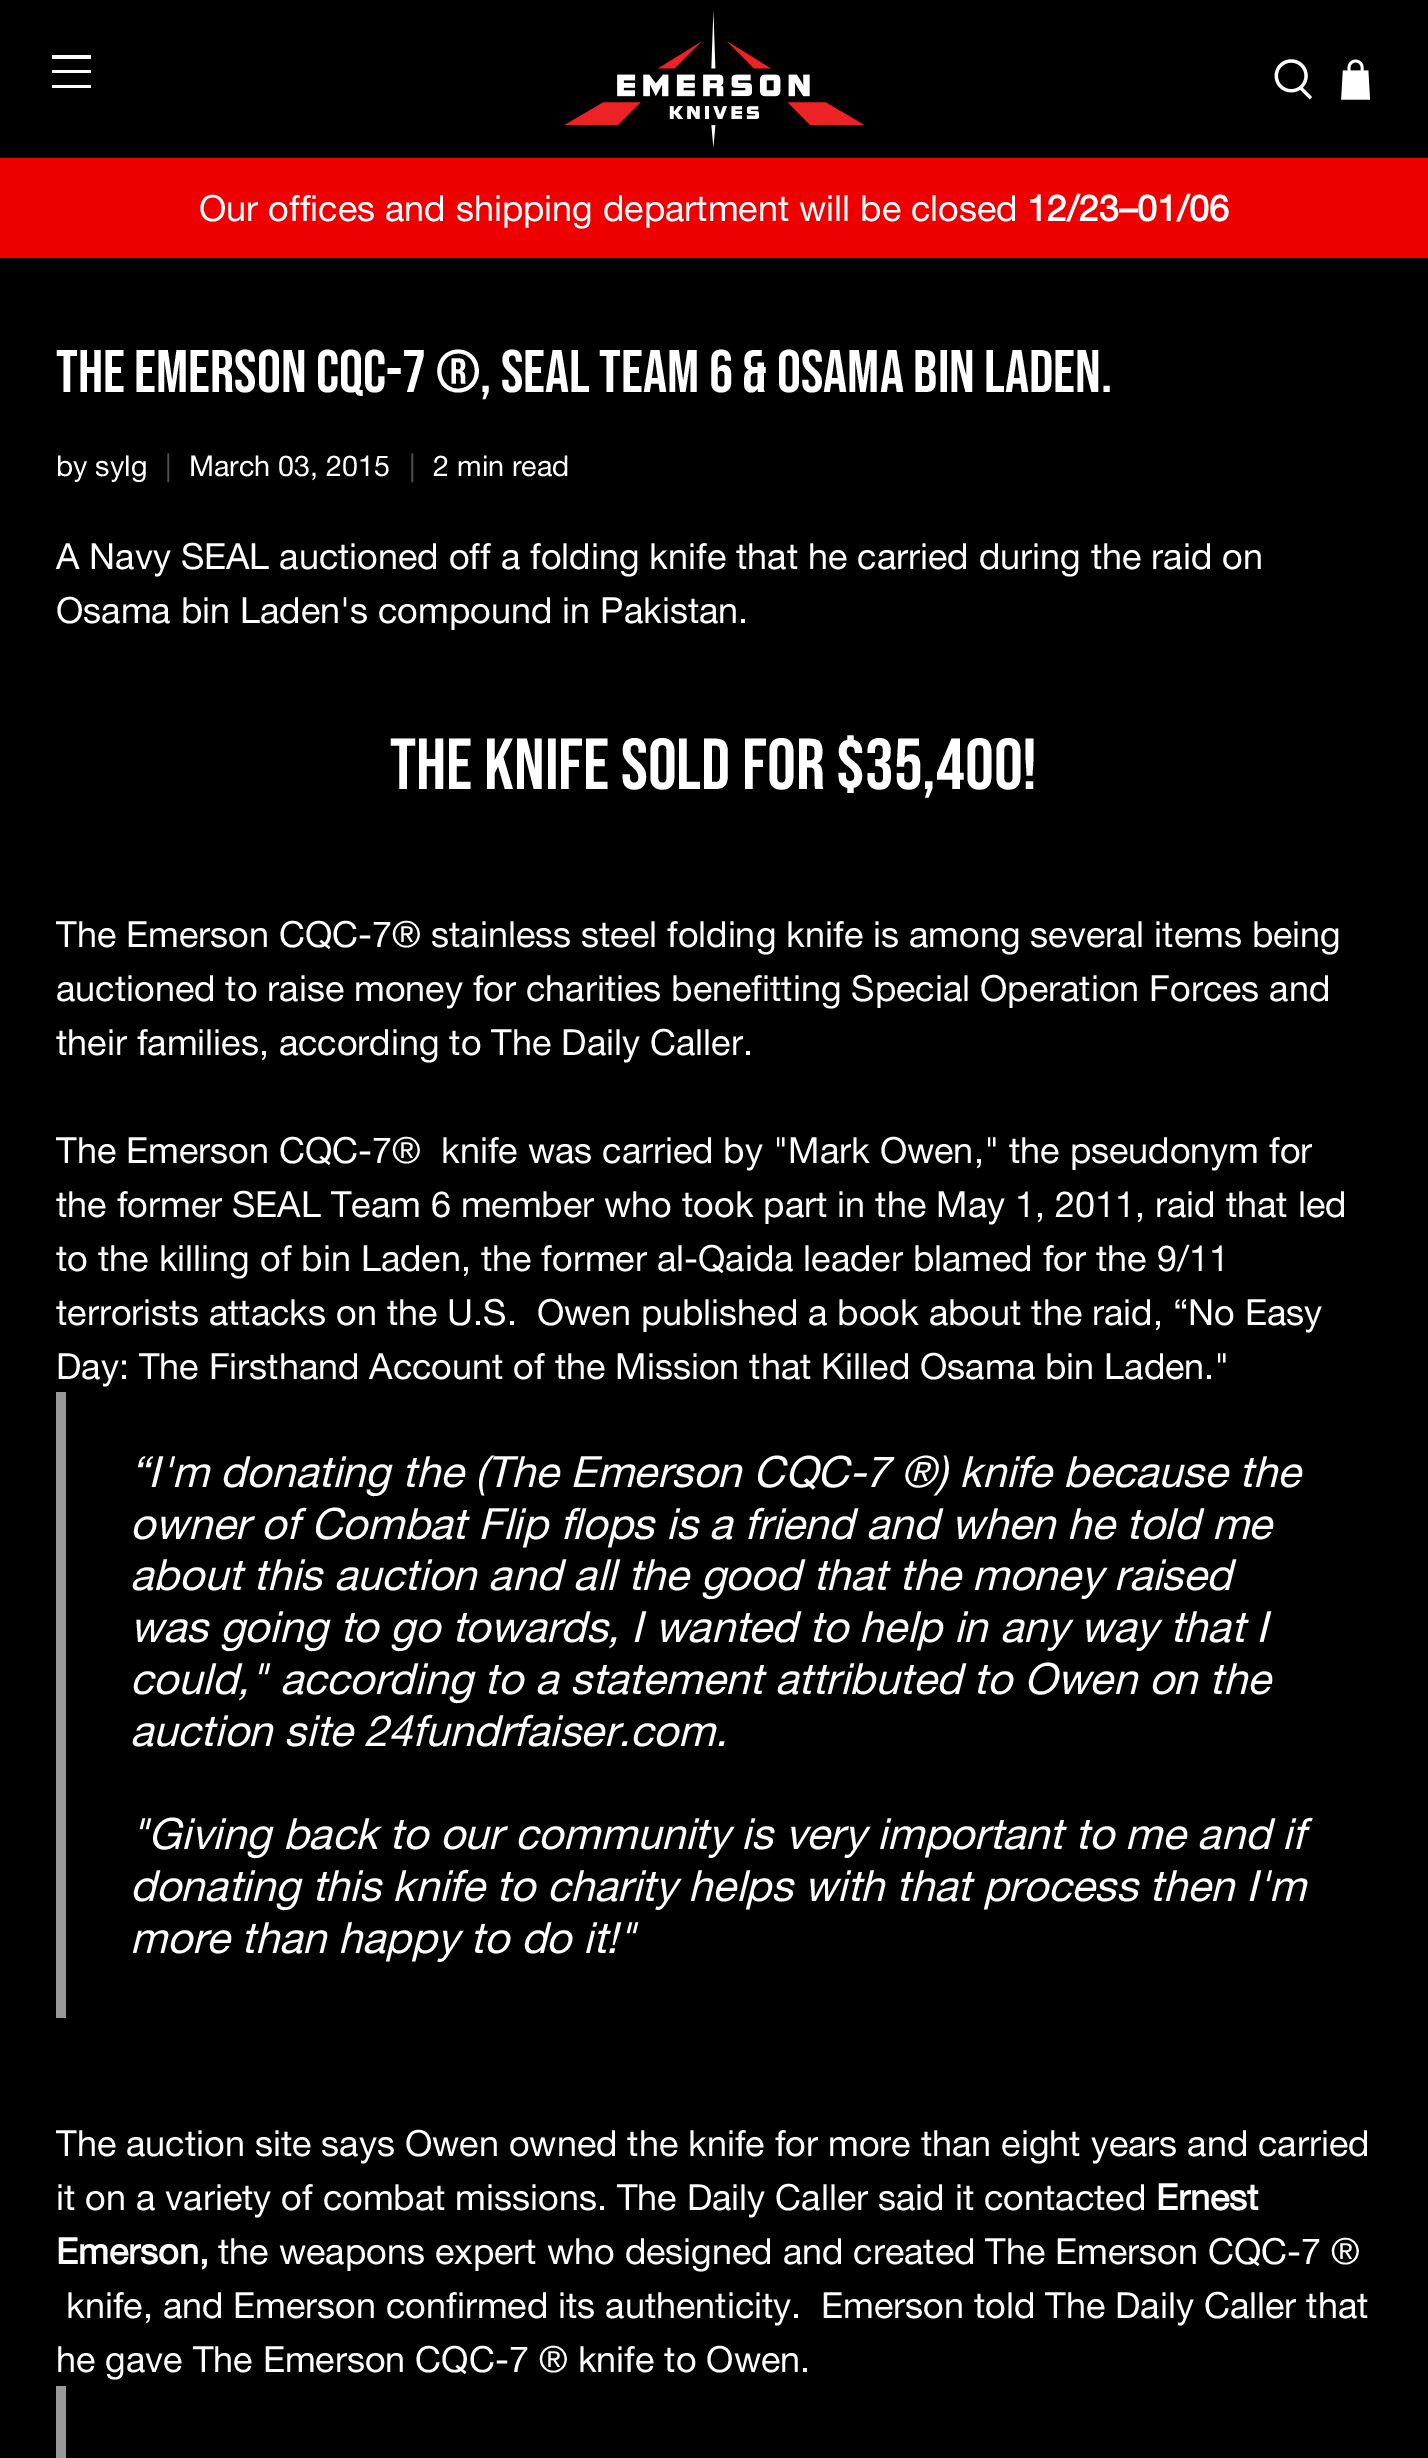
%!PS
<< /PageSize [1428 2458] >> setpagedevice
/picture { 5 dict begin { /h /w /y /x /name } { exch def } forall
  gsave x y translate w h scale
  w h 8 [w 0 0 h 0 0] name (r) file false 3 colorimage grestore end } def
0 2458 translate 1 -1 scale
4 setmiterlimit
0 setgray
0 0 1428 2458 rectfill
1 setgray
52 55 39 4 rectfill
52 70 39 3 rectfill
52 85 39 3 rectfill
(img1.rgb) 564 10 300 138 picture
(img2.rgb) 1274 59 38 41 picture
(img3.rgb) 1341 59 30 41 picture
0.933 0 0 setrgbcolor
0 158 1428 100 rectfill
/HelveticaNeue-Regular [36 0 0 -36 0 0] selectfont
1 setgray
199 221 moveto (Our offices and shipping department will be closed) show
/HelveticaNeue-Bold [36 0 0 -36 0 0] selectfont
1027 221 moveto (12/23–01/06) show
/BebasNeue-Regular [60 0 0 -60 0 0] selectfont
56 392 moveto (The Emerson CQC-7 ®, SEAL Team 6 & Osama Bin Laden.) show
/HelveticaNeue-Regular [28.75 0 0 -28.75 0 0] selectfont
56 476 moveto (by sylg) show
0.302 setgray
165 476 moveto (|) show
1 setgray
189 476 moveto (March 03, 2015) show
0.302 setgray
409 476 moveto (|) show
1 setgray
433 476 moveto (2 min read) show
/HelveticaNeue-Regular [36 0 0 -36 0 0] selectfont
56 569 moveto (A Navy SEAL auctioned off a folding knife that he carried during the raid on) show
56 623 moveto (Osama bin Laden's compound in Pakistan.) show
/BebasNeue-Regular [72 0 0 -72 0 0] selectfont
390 789 moveto (The knife sold for $35,400!) show
/HelveticaNeue-Regular [36 0 0 -36 0 0] selectfont
56 947 moveto (The Emerson CQC-7® stainless steel folding knife is among several items being) show
56 1001 moveto (auctioned to raise money for charities benefitting Special Operation Forces and) show
56 1055 moveto (their families, according to The Daily Caller.) show
56 1163 moveto (The Emerson CQC-7®  knife was carried by "Mark Owen," the pseudonym for) show
56 1217 moveto (the former SEAL Team 6 member who took part in the May 1, 2011, raid that led) show
56 1271 moveto (to the killing of bin Laden, the former al-Qaida leader blamed for the 9/11) show
56 1325 moveto (terrorists attacks on the U.S.  Owen published a book about the raid, “No Easy) show
56 1379 moveto (Day: The Firsthand Account of the Mission that Killed Osama bin Laden.") show
0.6 setgray
56 1392 10 626 rectfill
/HelveticaNeue-Italic [43.2 0 0 -43.2 0 0] selectfont
1 setgray
130 1487 moveto (“I'm donating the \(The Emerson CQC-7 ®\) knife because the) show
130 1539 moveto (owner of Combat Flip flops is a friend and when he told me) show
130 1590 moveto (about this auction and all the good that the money raised) show
130 1642 moveto (was going to go towards, I wanted to help in any way that I) show
130 1694 moveto (could," according to a statement attributed to Owen on the) show
130 1746 moveto (auction site 24fundrfaiser.com.) show
130 1849 moveto ("Giving back to our community is very important to me and if) show
130 1901 moveto (donating this knife to charity helps with that process then I'm) show
130 1953 moveto (more than happy to do it!") show
/HelveticaNeue-Regular [36 0 0 -36 0 0] selectfont
56 2156 moveto (The auction site says Owen owned the knife for more than eight years and carried) show
56 2210 moveto (it on a variety of combat missions. The Daily Caller said it contacted) show
/HelveticaNeue-Bold [36 0 0 -36 0 0] selectfont
1156 2210 moveto (Ernest) show
56 2264 moveto (Emerson,) show
/HelveticaNeue-Regular [36 0 0 -36 0 0] selectfont
218 2264 moveto (the weapons expert who designed and created The Emerson CQC-7 ®) show
66 2318 moveto (knife, and Emerson confirmed its authenticity.) show
821 2318 moveto (Emerson told The Daily Caller that) show
56 2372 moveto (he gave The Emerson CQC-7 ® knife to Owen.) show
0.6 setgray
56 2386 10 72 rectfill
showpage
